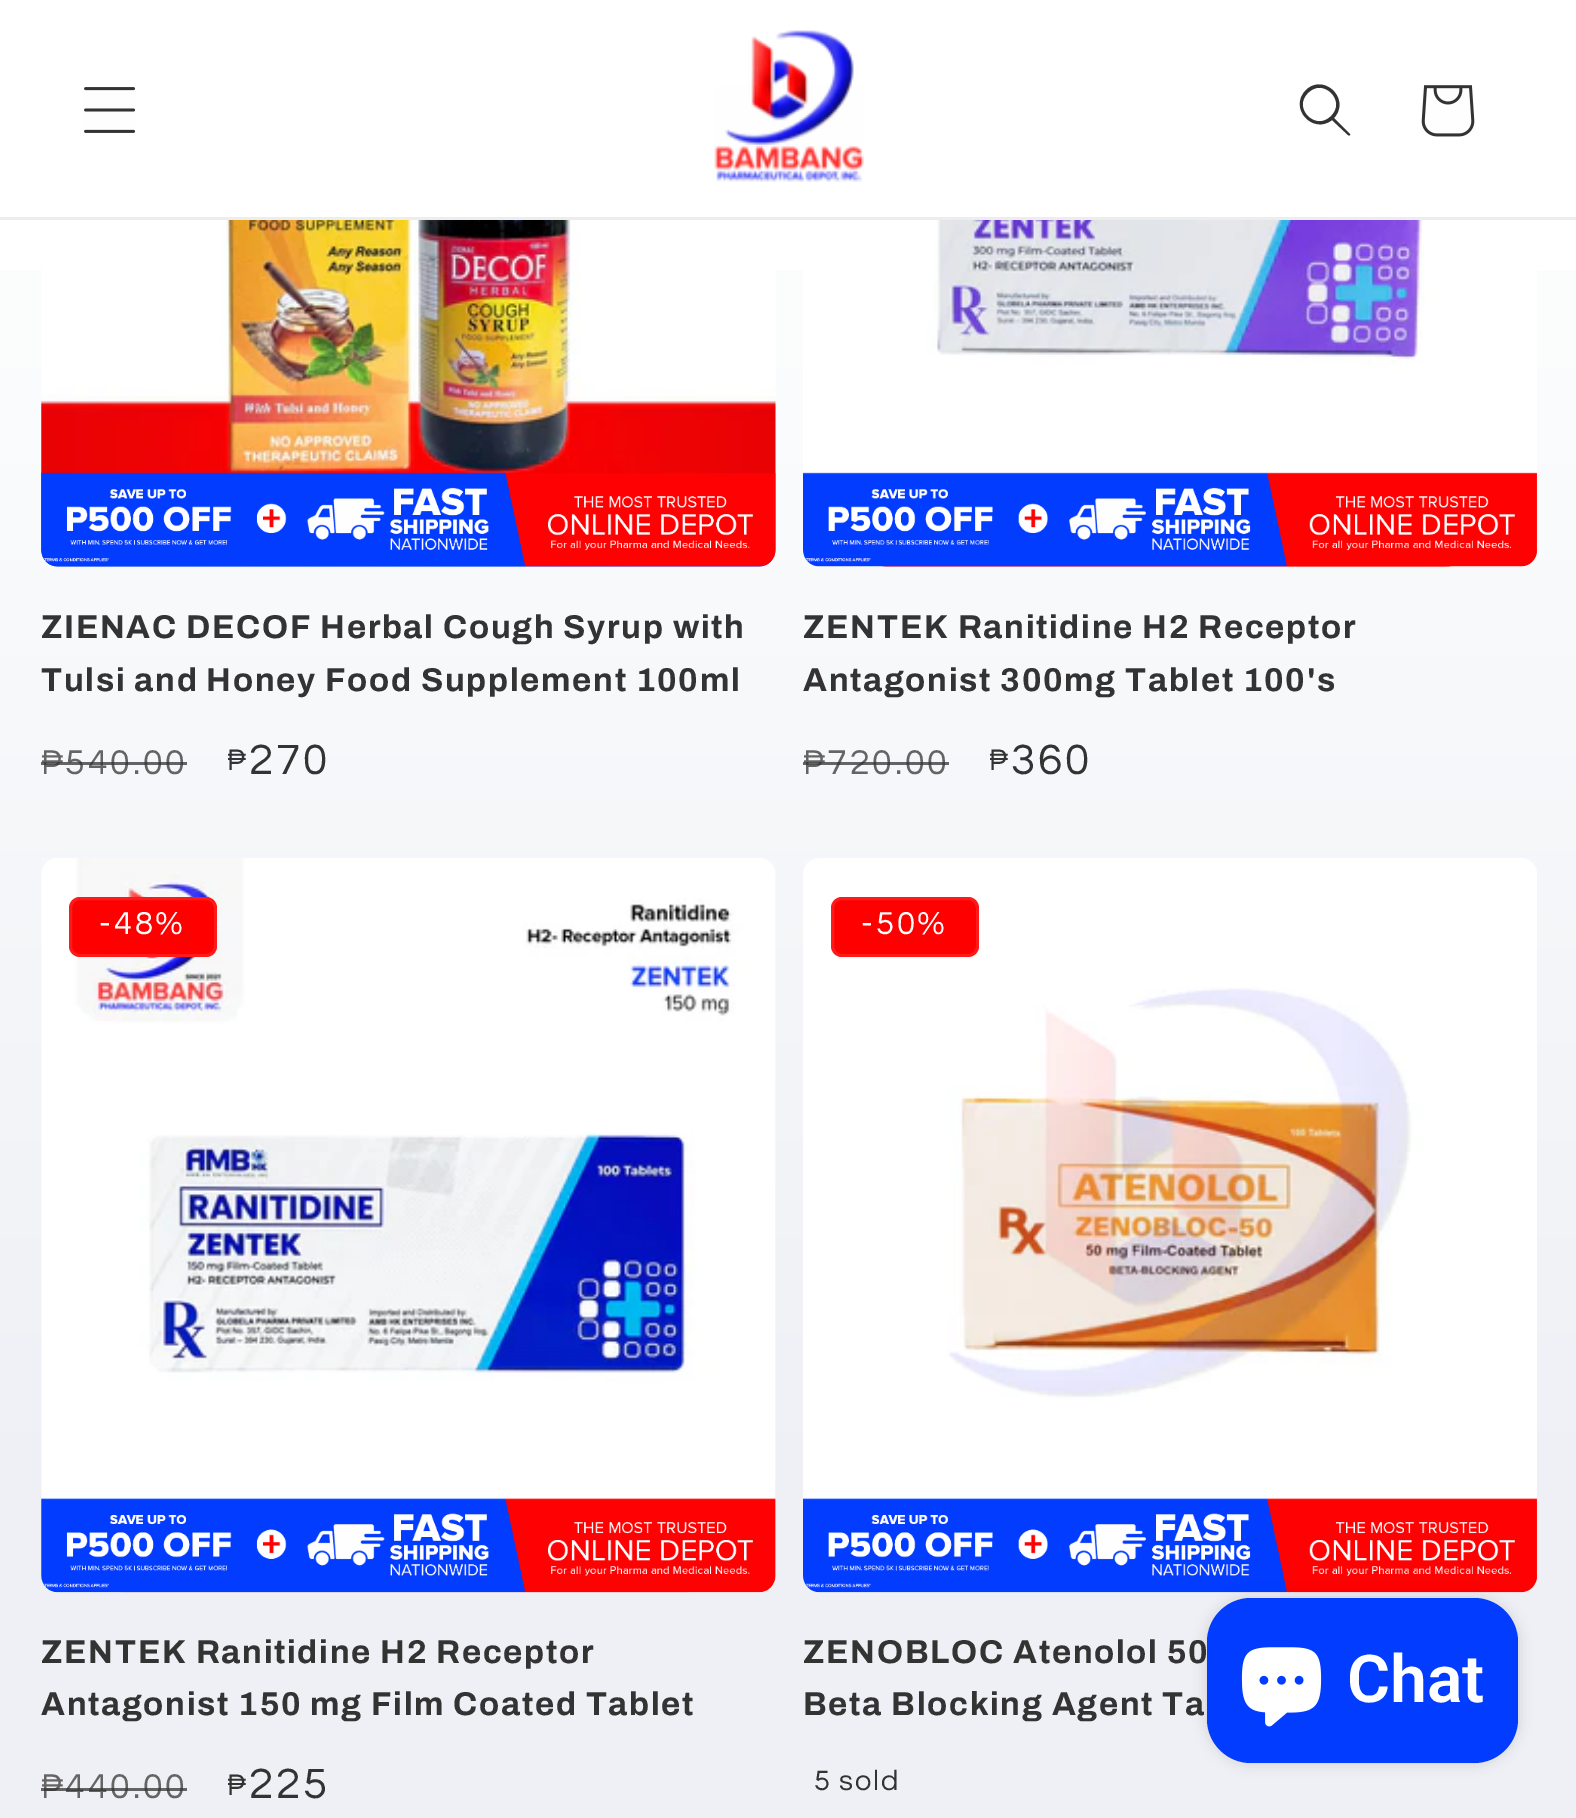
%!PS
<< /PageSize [1576 1818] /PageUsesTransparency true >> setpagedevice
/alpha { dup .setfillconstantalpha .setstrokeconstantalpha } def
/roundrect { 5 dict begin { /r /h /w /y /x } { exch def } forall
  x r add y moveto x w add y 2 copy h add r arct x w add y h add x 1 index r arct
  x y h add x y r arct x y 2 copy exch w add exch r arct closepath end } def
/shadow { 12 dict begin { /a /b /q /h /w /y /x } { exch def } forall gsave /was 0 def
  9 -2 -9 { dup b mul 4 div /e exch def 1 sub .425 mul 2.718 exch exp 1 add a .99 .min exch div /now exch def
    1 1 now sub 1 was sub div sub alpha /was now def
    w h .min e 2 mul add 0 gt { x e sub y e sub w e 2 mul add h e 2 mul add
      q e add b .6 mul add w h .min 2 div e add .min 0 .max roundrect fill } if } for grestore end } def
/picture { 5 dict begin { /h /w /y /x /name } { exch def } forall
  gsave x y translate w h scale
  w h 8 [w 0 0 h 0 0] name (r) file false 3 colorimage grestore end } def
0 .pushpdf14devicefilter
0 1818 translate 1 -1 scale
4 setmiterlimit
1 setgray
0 0 1576 1818 rectfill
gsave newpath 0 270 moveto 1576 270 lineto 1576 1818 lineto 0 1818 lineto closepath clip newpath
<< /ShadingType 2 /ColorSpace /DeviceRGB /Coords [789 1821 789 0] /Extend [true true] /Function << /FunctionType 3 /Domain [0 1] /Functions [<< /FunctionType 2 /Domain [0 1] /C0 [0.937 0.941 0.961] /C1 [0.937 0.941 0.961] /N 1 >> << /FunctionType 2 /Domain [0 1] /C0 [0.937 0.941 0.961] /C1 [1 1 1] /N 1 >> << /FunctionType 2 /Domain [0 1] /C0 [1 1 1] /C1 [1 1 1] /N 1 >>] /Bounds [0.16 0.98] /Encode [0 1 0 1 0 1] >> >> shfill grestore
0.929 0.929 0.933 setrgbcolor
0 217 1576 3 rectfill
(img1.rgb) 84 87 52 46 picture
(img2.rgb) 714 30 150 152 picture
0.204 0.2 0.2 setrgbcolor
newpath 1331 116 moveto 1316 132 1292 108 1308 93 curveto 1323 77 1347 101 1331 116 curveto 1332 120 moveto 1313 135 1288 108 1306 90 curveto 1324 73 1351 99 1334 118 curveto 1350 134 lineto 1351 135 1349 136 1348 135 curveto closepath eofill
(img3.rgb) 1421 85 54 52 picture
(img4.rgb) 41 220 735 347 picture
(img5.rgb) 41 472 735 95 picture
/Archivo-Bold [33 0 0 -33 0 0] selectfont
41 638 moveto 1.65 0 (ZIENAC DECOF Herbal Cough Syrup with) ashow
41 691 moveto 1.65 0 (Tulsi and Honey Food Supplement 100ml) ashow
/Questrial-Regular [35.75 0 0 -35.75 0 0] selectfont
0.396 0.392 0.396 setrgbcolor
41 774 moveto 2.75 0 (₱540.00) ashow
0.75 alpha
0.204 0.2 0.2 setrgbcolor
41 762 146 3 rectfill
/Questrial-Regular [31 0 0 -31 0 0] selectfont
1 alpha
227 770 moveto 2.75 0 (₱) ashow
/Questrial-Regular [44 0 0 -44 0 0] selectfont
249 774 moveto 2.75 0 (270) ashow
(img6.rgb) 803 220 734 347 picture
(img7.rgb) 803 472 734 95 picture
/Archivo-Bold [33 0 0 -33 0 0] selectfont
803 638 moveto 1.65 0 (ZENTEK Ranitidine H2 Receptor) ashow
803 691 moveto 1.65 0 (Antagonist 300mg Tablet 100's) ashow
/Questrial-Regular [35.75 0 0 -35.75 0 0] selectfont
0.396 0.392 0.396 setrgbcolor
803 774 moveto 2.75 0 (₱720.00) ashow
0.75 alpha
0.204 0.2 0.2 setrgbcolor
803 762 146 3 rectfill
/Questrial-Regular [31 0 0 -31 0 0] selectfont
1 alpha
989 770 moveto 2.75 0 (₱) ashow
/Questrial-Regular [44 0 0 -44 0 0] selectfont
1011 774 moveto 2.75 0 (360) ashow
(img8.rgb) 41 858 735 735 picture
(img9.rgb) 41 1498 735 95 picture
1 0 0 setrgbcolor
69 897 148 60 11 roundrect fill
0.1 alpha
1 setgray
3 setlinewidth
70.5 898.5 145 57 9.5 roundrect stroke
/Questrial-Regular [33 0 0 -33 0 0] selectfont
1 alpha
99 934 moveto 2.75 0 (-48%) ashow
/Archivo-Bold [33 0 0 -33 0 0] selectfont
0.204 0.2 0.2 setrgbcolor
41 1663 moveto 1.65 0 (ZENTEK Ranitidine H2 Receptor) ashow
41 1715 moveto 1.65 0 (Antagonist 150 mg Film Coated Tablet) ashow
/Questrial-Regular [35.75 0 0 -35.75 0 0] selectfont
0.396 0.392 0.396 setrgbcolor
41 1798 moveto 2.75 0 (₱440.00) ashow
0.75 alpha
0.204 0.2 0.2 setrgbcolor
41 1788 146 3 rectfill
/Questrial-Regular [31 0 0 -31 0 0] selectfont
1 alpha
227 1795 moveto 2.75 0 (₱) ashow
/Questrial-Regular [44 0 0 -44 0 0] selectfont
249 1798 moveto 2.75 0 (225) ashow
(img10.rgb) 803 858 734 734 picture
(img11.rgb) 803 1498 734 95 picture
1 0 0 setrgbcolor
831 897 148 60 11 roundrect fill
0.1 alpha
1 setgray
832.5 898.5 145 57 9.5 roundrect stroke
/Questrial-Regular [33 0 0 -33 0 0] selectfont
1 alpha
861 934 moveto 2.75 0 (-50%) ashow
/Archivo-Bold [33 0 0 -33 0 0] selectfont
0.204 0.2 0.2 setrgbcolor
803 1663 moveto 1.65 0 (ZENOBLOC Atenolol 50) ashow
803 1715 moveto 1.65 0 (Beta Blocking Agent Ta) ashow
/Questrial-Regular [29 0 0 -29 0 0] selectfont
814 1790 moveto 1.65 0 (5 sold) ashow
0 setgray
1207 1598 311 165 44 7 0.15 shadow
0.004 0.235 1 setrgbcolor
1207 1598 311 165 44 roundrect fill
(img12.rgb) 1241 1647 81 80 picture
/Roboto-SemiBold [66 0 0 -66 0 0] selectfont
1 setgray
1347 1702 moveto (Chat) show
.poppdf14devicefilter showpage
